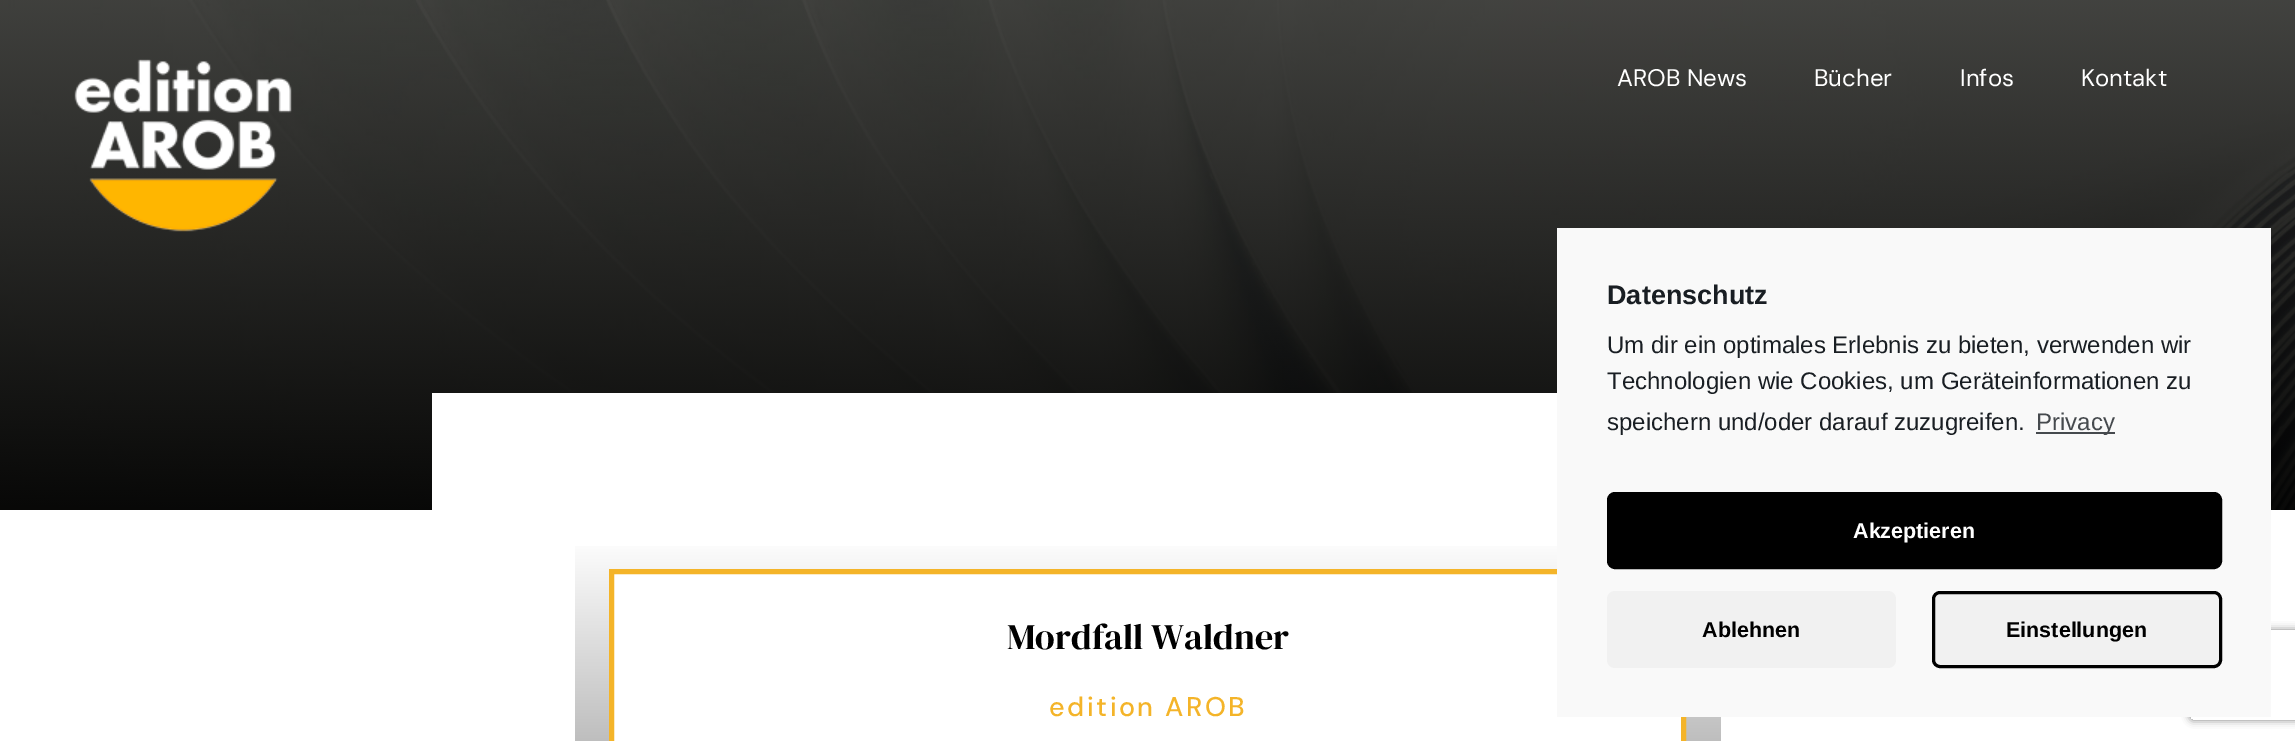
%!PS
<< /PageSize [2295 741] /PageUsesTransparency true >> setpagedevice
/alpha { dup .setfillconstantalpha .setstrokeconstantalpha } def
/roundrect { 5 dict begin { /r /h /w /y /x } { exch def } forall
  x r add y moveto x w add y 2 copy h add r arct x w add y h add x 1 index r arct
  x y h add x y r arct x y 2 copy exch w add exch r arct closepath end } def
/shadow { 12 dict begin { /a /b /q /h /w /y /x } { exch def } forall gsave /was 0 def
  9 -2 -9 { dup b mul 4 div /e exch def 1 sub .425 mul 2.718 exch exp 1 add a .99 .min exch div /now exch def
    1 1 now sub 1 was sub div sub alpha /was now def
    w h .min e 2 mul add 0 gt { x e sub y e sub w e 2 mul add h e 2 mul add
      q e add b .6 mul add w h .min 2 div e add .min 0 .max roundrect fill } if } for grestore end } def
/picture { 5 dict begin { /h /w /y /x /name } { exch def } forall
  gsave x y translate w h scale
  w h 8 [w 0 0 h 0 0] name (r) file false 3 colorimage grestore end } def
0 .pushpdf14devicefilter
0 741 translate 1 -1 scale
4 setmiterlimit
1 setgray
0 0 2295 741 rectfill
(img1.rgb) 0 0 2295 510 picture
(img2.rgb) 74 59 218 173 picture
/DMSans-Regular [24 0 0 -24 0 0] selectfont
1617 86 moveto (AROB News) show
1814 86 moveto (Bücher) show
1960 86 moveto (Infos) show
2081 86 moveto (Kontakt) show
432 393 1431 117 rectfill
gsave newpath 575 546 moveto 1721 546 lineto 1721 741 lineto 575 741 lineto closepath clip newpath
<< /ShadingType 2 /ColorSpace /DeviceRGB /Coords [1148 538 1148 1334] /Extend [true true] /Function << /FunctionType 2 /Domain [0 1] /C0 [1 1 1] /C1 [0 0 0] /N 1 >> >> shfill grestore
newpath 611.5 571.5 moveto 1683.5 571.5 lineto 1683.5 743.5 lineto 611.5 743.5 lineto closepath gsave fill grestore
0.957 0.706 0.161 setrgbcolor
5 setlinewidth
stroke
/DMSerifDisplay-Regular [36 0 0 -36 0 0] selectfont
0 setgray
1007 649 moveto (Mordfall Waldner) show
/DMSans-Medium [27 0 0 -27 0 0] selectfont
0.957 0.706 0.161 setrgbcolor
1049 716 moveto 2.5 0 (edition AROB) ashow
gsave
newpath 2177 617 moveto 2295 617 lineto 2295 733 lineto 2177 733 lineto closepath 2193 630 moveto 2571 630 lineto 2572.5 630 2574 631.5 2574 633 curveto 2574 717 lineto 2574 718.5 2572.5 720 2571 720 curveto 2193 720 lineto 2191.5 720 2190 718.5 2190 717 curveto 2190 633 lineto 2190 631.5 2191.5 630 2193 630 curveto closepath eoclip newpath
0.502 setgray
2190 630 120 90 3 4 1 shadow
grestore
0.976 setgray
1557 228 714 489 rectfill
/LiberationSans-Bold [27 0 0 -27 0 0] selectfont
0.098 0.118 0.137 setrgbcolor
1607 304 moveto (Datenschutz) show
/LiberationSans-Regular [24 0 0 -24 0 0] selectfont
1607 353 moveto (Um dir ein optimales Erlebnis zu bieten, verwenden wir) show
1607 389 moveto (Technologien wie Cookies, um Geräteinformationen zu) show
1607 430 moveto (speichern und/oder darauf zuzugreifen.) show
0.275 0.29 0.306 setrgbcolor
2036 432 79 2 rectfill
2036 430 moveto (Privacy) show
0 setgray
1608.5 493.5 612 74 6.5 roundrect gsave fill grestore
3 setlinewidth
stroke
/LiberationSans-Bold [21.5 0 0 -21.5 0 0] selectfont
1 setgray
1853 538 moveto (Akzeptieren) show
0.945 setgray
1607 591 289 77 8 roundrect fill
0 setgray
1702 637 moveto (Ablehnen) show
0.945 setgray
1933.5 592.5 287 74 6.5 roundrect gsave fill grestore
0 setgray
stroke
2006 637 moveto (Einstellungen) show
.poppdf14devicefilter showpage
